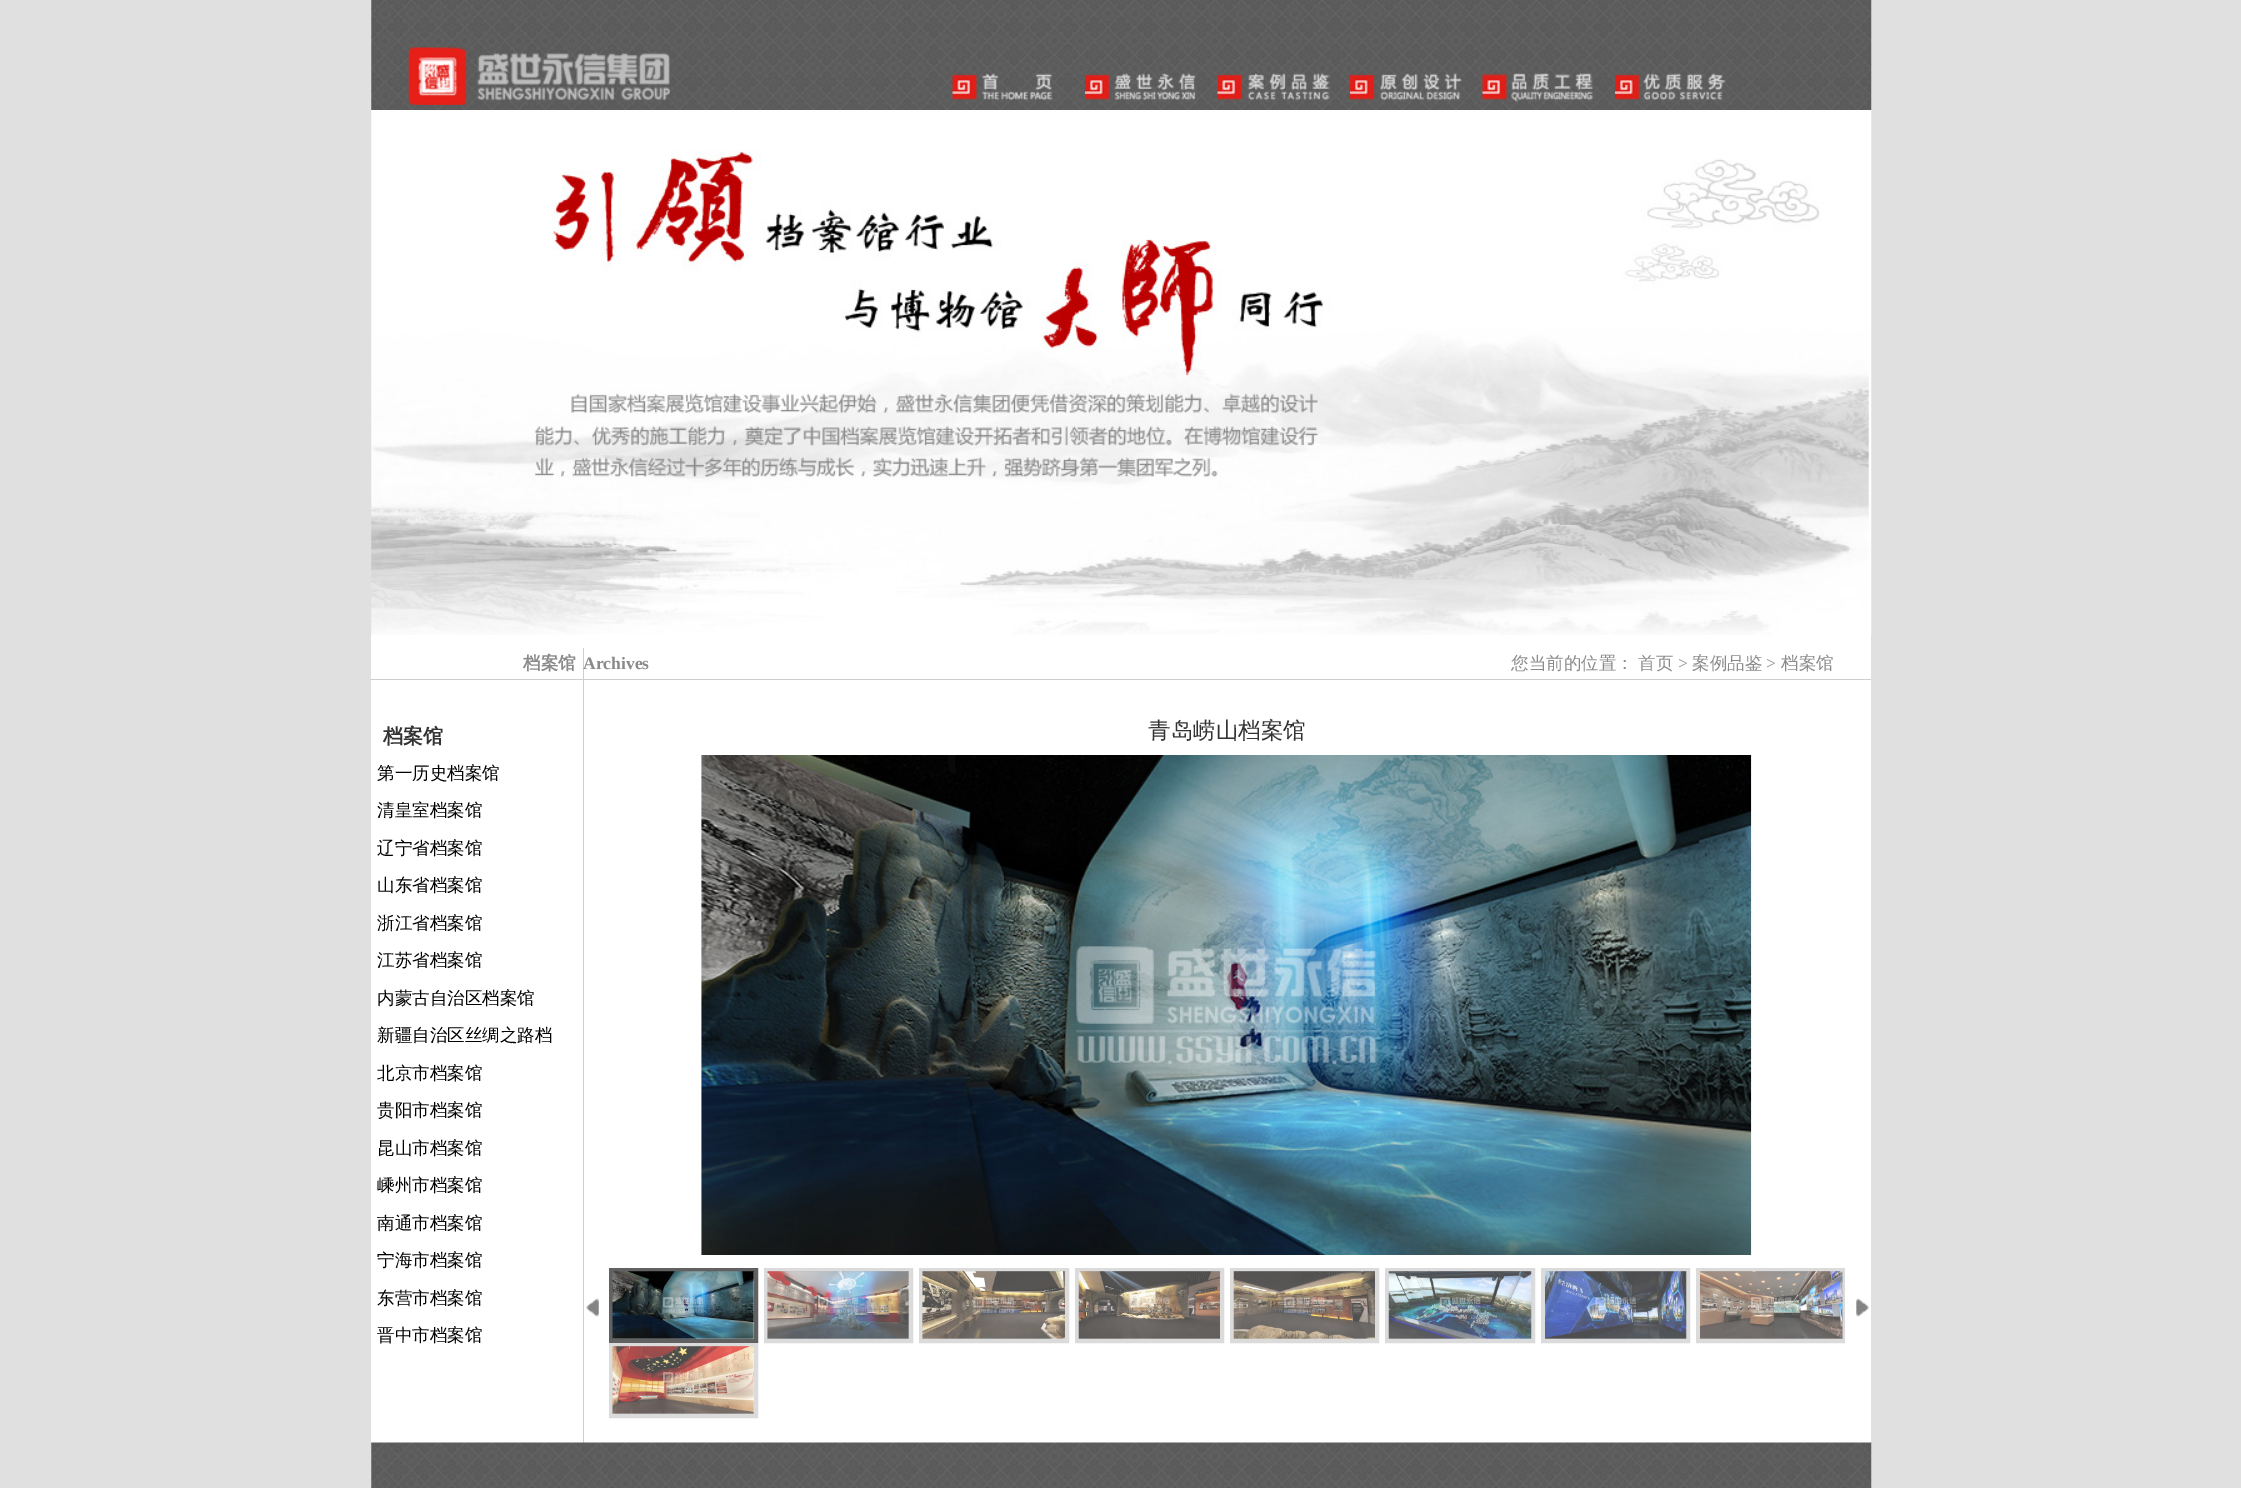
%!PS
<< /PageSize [2241 1488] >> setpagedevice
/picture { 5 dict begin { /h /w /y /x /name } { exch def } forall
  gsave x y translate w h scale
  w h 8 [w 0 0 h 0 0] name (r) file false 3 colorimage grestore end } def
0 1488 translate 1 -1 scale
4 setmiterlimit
0.878 setgray
0 0 2241 1488 rectfill
(img1.rgb) 371 0 1501 110 picture
(img2.rgb) 408 47 262 58 picture
(img3.rgb) 952 73 101 28 picture
(img4.rgb) 1085 73 111 28 picture
(img5.rgb) 1217 73 113 28 picture
(img6.rgb) 1350 73 112 28 picture
(img7.rgb) 1482 73 111 29 picture
(img8.rgb) 1615 73 111 28 picture
(img9.rgb) 371 110 1501 525 picture
1 setgray
371 635 1500 808 rectfill
0.808 setgray
583 648 1 795 rectfill
371 679 1500 1 rectfill
/WenQuanYiZenHei-Bold [17.5 0 0 -17.5 0 0] selectfont
0.541 setgray
523 669 moveto (档案馆) show
/LiberationSerif-Bold [17.5 0 0 -17.5 0 0] selectfont
583 669 moveto (Archives) show
/WenQuanYiZenHei-Medium [17.5 0 0 -17.5 0 0] selectfont
1511 669 moveto (您当前的位置：) show
1638 669 moveto (首页) show
/LiberationSerif-Regular [17.5 0 0 -17.5 0 0] selectfont
1678 669 moveto (>) show
/WenQuanYiZenHei-Medium [17.5 0 0 -17.5 0 0] selectfont
1692 669 moveto (案例品鉴) show
/LiberationSerif-Regular [17.5 0 0 -17.5 0 0] selectfont
1766 669 moveto (>) show
/WenQuanYiZenHei-Medium [17.5 0 0 -17.5 0 0] selectfont
1781 669 moveto (档案馆) show
/WenQuanYiZenHei-Bold [20 0 0 -20 0 0] selectfont
0.2 setgray
383 743 moveto (档案馆) show
/WenQuanYiZenHei-Medium [17.5 0 0 -17.5 0 0] selectfont
0 setgray
377 779 moveto (第一历史档案馆) show
377 816 moveto (清皇室档案馆) show
377 854 moveto (辽宁省档案馆) show
377 891 moveto (山东省档案馆) show
377 929 moveto (浙江省档案馆) show
377 966 moveto (江苏省档案馆) show
377 1004 moveto (内蒙古自治区档案馆) show
377 1041 moveto (新疆自治区丝绸之路档) show
377 1079 moveto (北京市档案馆) show
377 1116 moveto (贵阳市档案馆) show
377 1154 moveto (昆山市档案馆) show
377 1191 moveto (嵊州市档案馆) show
377 1229 moveto (南通市档案馆) show
377 1266 moveto (宁海市档案馆) show
377 1304 moveto (东营市档案馆) show
377 1341 moveto (晋中市档案馆) show
/WenQuanYiZenHei-Medium [22.5 0 0 -22.5 0 0] selectfont
0.2 setgray
1148 738 moveto (青岛崂山档案馆) show
(img10.rgb) 701 755 1051 500 picture
(img11.rgb) 586 1298 13 19 picture
0.38 setgray
4 setlinewidth
611 1270 145 71 rectstroke
(img12.rgb) 612 1271 142 68 picture
0.859 setgray
766 1270 145 71 rectstroke
(img13.rgb) 767 1271 142 68 picture
921 1270 146 71 rectstroke
(img14.rgb) 922 1271 143 68 picture
1077 1270 145 71 rectstroke
(img15.rgb) 1078 1271 142 68 picture
1232 1270 145 71 rectstroke
(img16.rgb) 1233 1271 142 68 picture
1387 1270 146 71 rectstroke
(img17.rgb) 1388 1271 144 68 picture
1543 1270 145 71 rectstroke
(img18.rgb) 1545 1271 142 68 picture
gsave
609 1268 1236 150 rectclip
1698 1270 146 71 rectstroke
grestore
(img19.rgb) 1700 1271 143 68 picture
611 1345 145 71 rectstroke
(img20.rgb) 612 1346 142 68 picture
(img21.rgb) 1856 1298 13 19 picture
(img22.rgb) 371 1442 1501 46 picture
showpage
